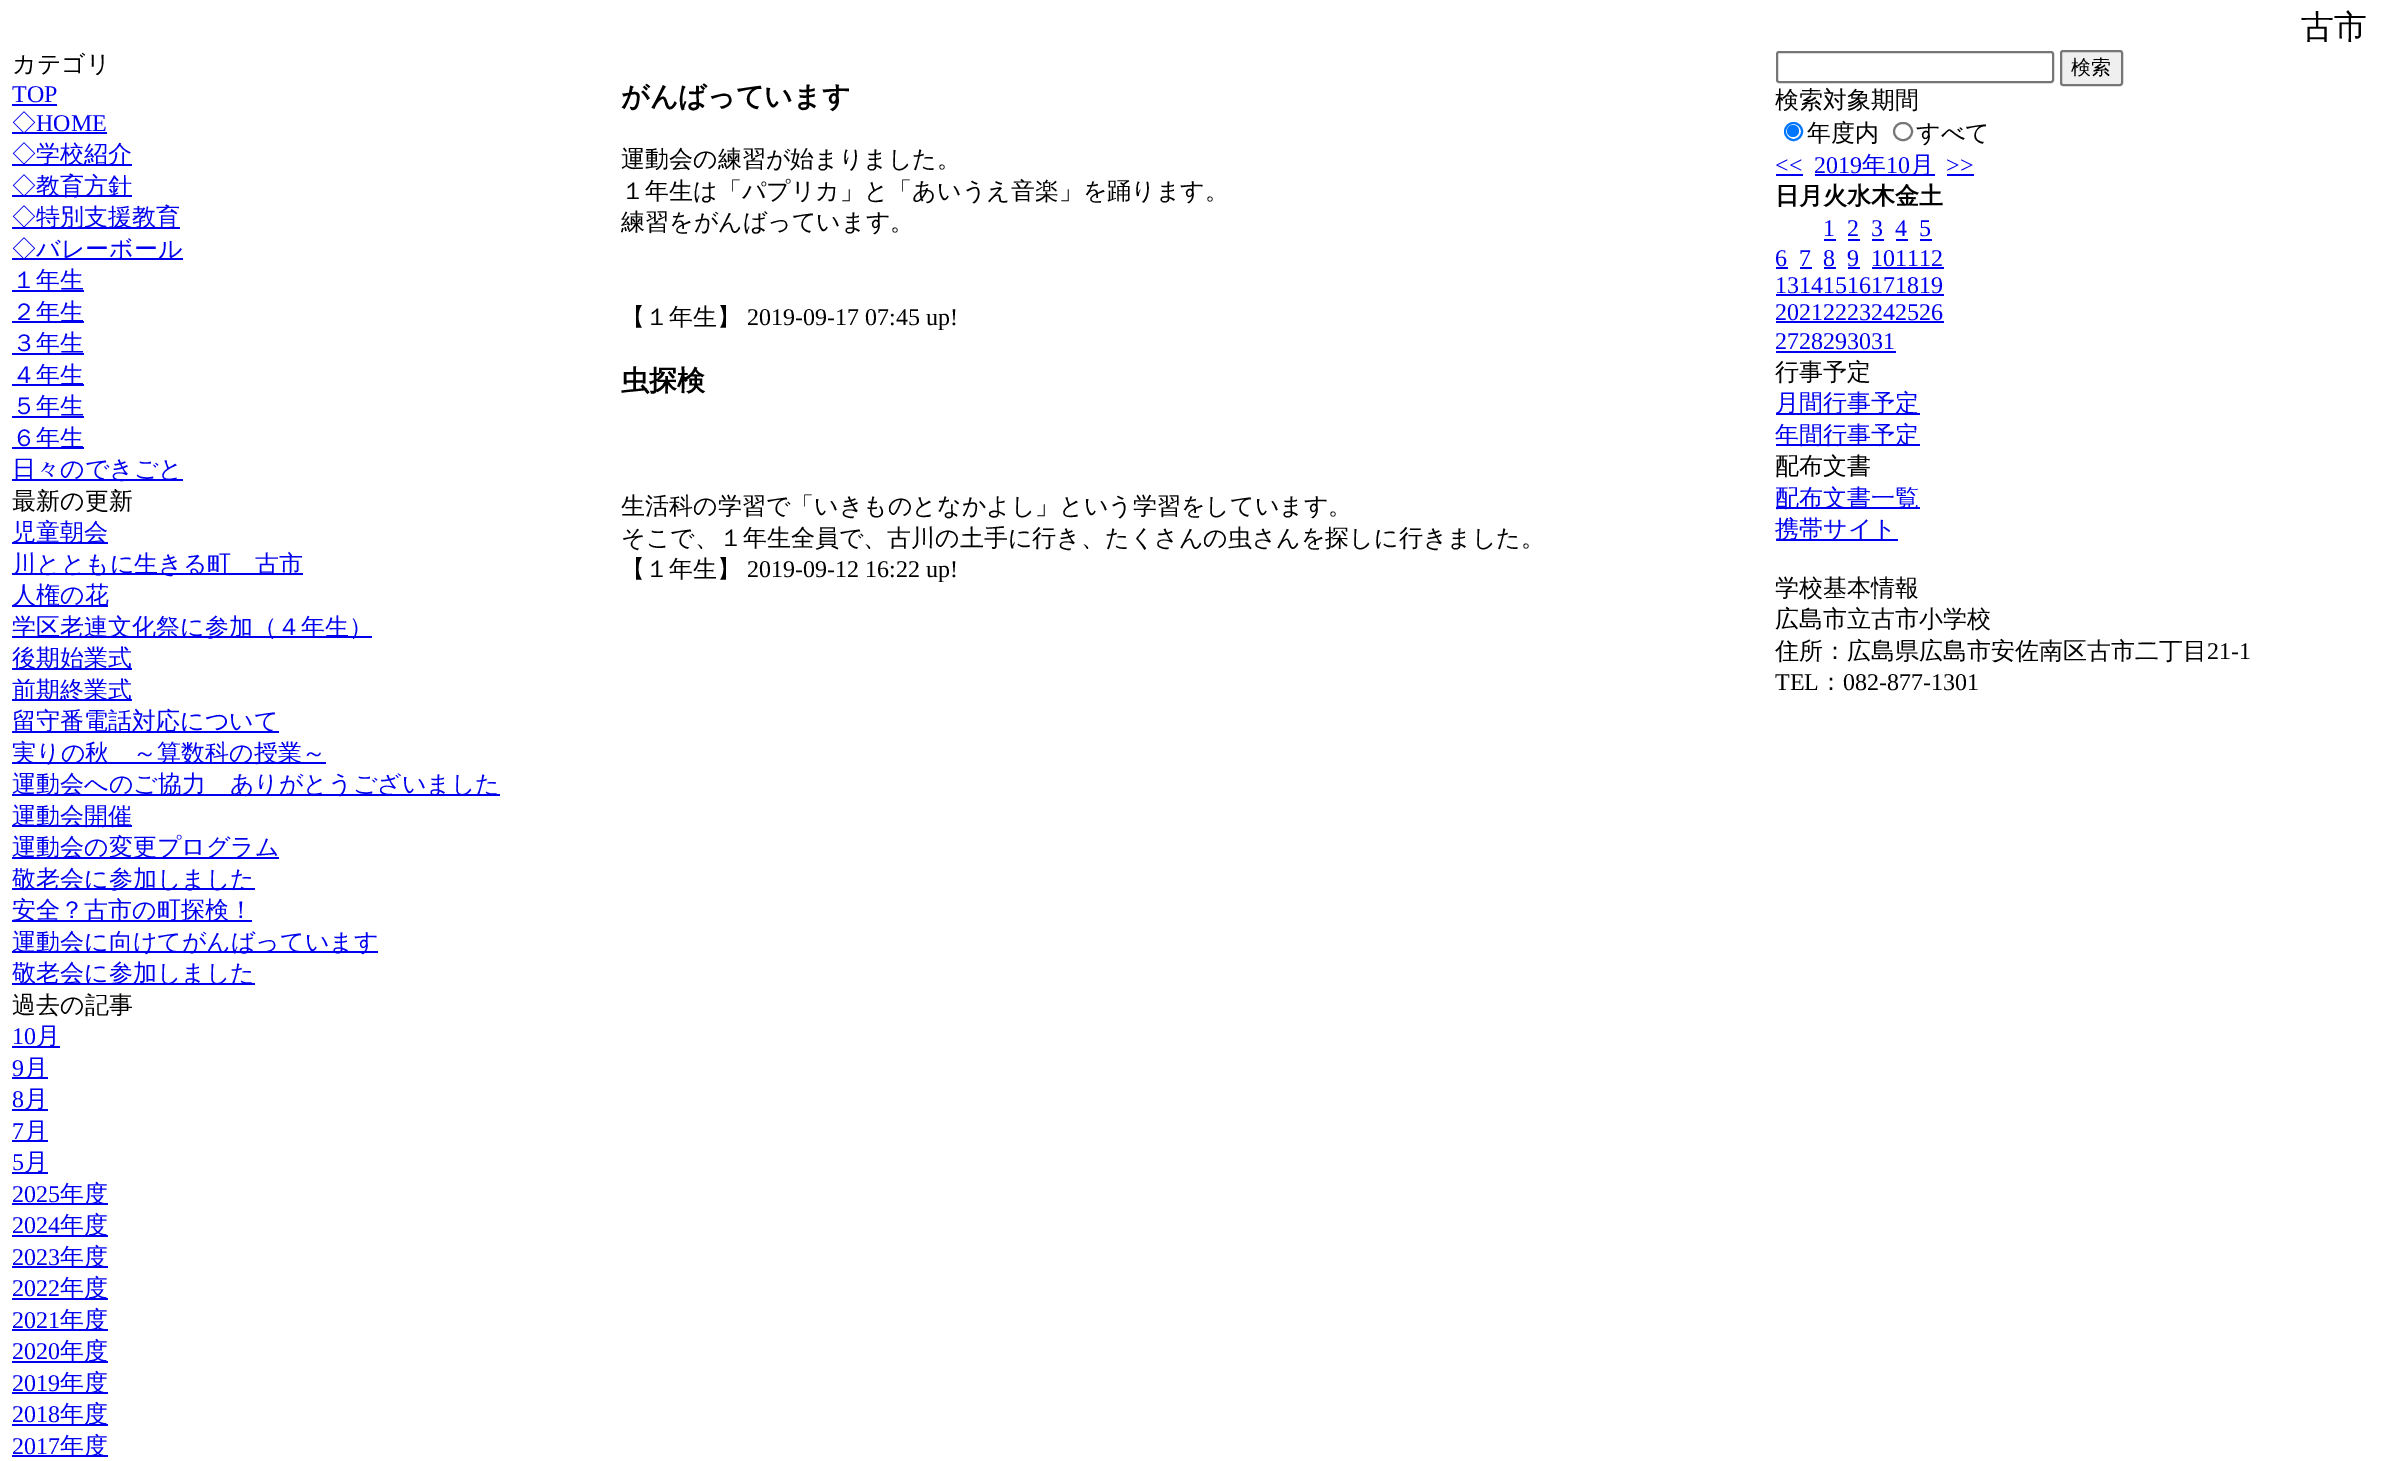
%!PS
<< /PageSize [2381 1461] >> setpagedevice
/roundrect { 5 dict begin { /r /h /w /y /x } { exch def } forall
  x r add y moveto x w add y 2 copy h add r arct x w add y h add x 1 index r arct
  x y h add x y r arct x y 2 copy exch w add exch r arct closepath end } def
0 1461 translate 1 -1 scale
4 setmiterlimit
1 setgray
0 0 2381 1461 rectfill
/WenQuanYiZenHei-Medium [33 0 0 -33 0 0] selectfont
0 setgray
2301 38 moveto (古市) show
/WenQuanYiZenHei-Medium [24 0 0 -24 0 0] selectfont
12 72 moveto (カテゴリ) show
/LiberationSerif-Regular [24 0 0 -24 0 0] selectfont
0 0 0.933 setrgbcolor
12 102 moveto (TOP) show
12 104 45 2 rectfill
12 132 95 2 rectfill
/WenQuanYiZenHei-Medium [24 0 0 -24 0 0] selectfont
12 131 moveto (◇) show
/LiberationSerif-Regular [24 0 0 -24 0 0] selectfont
36 131 moveto (HOME) show
12 164 120 2 rectfill
/WenQuanYiZenHei-Medium [24 0 0 -24 0 0] selectfont
12 162 moveto (◇学校紹介) show
12 195 120 2 rectfill
12 194 moveto (◇教育方針) show
12 227 168 2 rectfill
12 225 moveto (◇特別支援教育) show
12 258 171 2 rectfill
12 257 moveto (◇バレーボール) show
12 290 72 2 rectfill
12 288 moveto (１年生) show
12 321 72 2 rectfill
12 320 moveto (２年生) show
12 353 72 2 rectfill
12 351 moveto (３年生) show
12 384 72 2 rectfill
12 383 moveto (４年生) show
12 416 72 2 rectfill
12 414 moveto (５年生) show
12 447 72 2 rectfill
12 446 moveto (６年生) show
12 479 171 2 rectfill
12 477 moveto (日々のできごと) show
0 setgray
12 509 moveto (最新の更新) show
0 0 0.933 setrgbcolor
12 542 96 2 rectfill
12 540 moveto (児童朝会) show
12 573 291 2 rectfill
12 572 moveto (川とともに生きる町　古市) show
12 605 96 2 rectfill
12 603 moveto (人権の花) show
12 636 360 2 rectfill
12 635 moveto (学区老連文化祭に参加（４年生）) show
12 668 120 2 rectfill
12 666 moveto (後期始業式) show
12 699 120 2 rectfill
12 698 moveto (前期終業式) show
12 731 267 2 rectfill
12 729 moveto (留守番電話対応について) show
12 762 314 2 rectfill
12 761 moveto (実りの秋　～算数科の授業～) show
12 794 488 2 rectfill
12 792 moveto (運動会へのご協力　ありがとうございました) show
12 825 120 2 rectfill
12 824 moveto (運動会開催) show
12 857 267 2 rectfill
12 855 moveto (運動会の変更プログラム) show
12 888 243 2 rectfill
12 887 moveto (敬老会に参加しました) show
12 920 240 2 rectfill
12 918 moveto (安全？古市の町探検！) show
12 951 366 2 rectfill
12 950 moveto (運動会に向けてがんばっています) show
12 983 243 2 rectfill
12 981 moveto (敬老会に参加しました) show
0 setgray
12 1013 moveto (過去の記事) show
/LiberationSerif-Regular [24 0 0 -24 0 0] selectfont
0 0 0.933 setrgbcolor
12 1044 moveto (10) show
12 1046 48 2 rectfill
/WenQuanYiZenHei-Medium [24 0 0 -24 0 0] selectfont
36 1044 moveto (月) show
/LiberationSerif-Regular [24 0 0 -24 0 0] selectfont
12 1076 moveto (9) show
12 1077 36 2 rectfill
/WenQuanYiZenHei-Medium [24 0 0 -24 0 0] selectfont
24 1076 moveto (月) show
/LiberationSerif-Regular [24 0 0 -24 0 0] selectfont
12 1107 moveto (8) show
12 1109 36 2 rectfill
/WenQuanYiZenHei-Medium [24 0 0 -24 0 0] selectfont
24 1107 moveto (月) show
/LiberationSerif-Regular [24 0 0 -24 0 0] selectfont
12 1139 moveto (7) show
12 1140 36 2 rectfill
/WenQuanYiZenHei-Medium [24 0 0 -24 0 0] selectfont
24 1139 moveto (月) show
/LiberationSerif-Regular [24 0 0 -24 0 0] selectfont
12 1170 moveto (5) show
12 1172 36 2 rectfill
/WenQuanYiZenHei-Medium [24 0 0 -24 0 0] selectfont
24 1170 moveto (月) show
/LiberationSerif-Regular [24 0 0 -24 0 0] selectfont
12 1202 moveto (2025) show
12 1203 96 2 rectfill
/WenQuanYiZenHei-Medium [24 0 0 -24 0 0] selectfont
60 1202 moveto (年度) show
/LiberationSerif-Regular [24 0 0 -24 0 0] selectfont
12 1233 moveto (2024) show
12 1235 96 2 rectfill
/WenQuanYiZenHei-Medium [24 0 0 -24 0 0] selectfont
60 1233 moveto (年度) show
/LiberationSerif-Regular [24 0 0 -24 0 0] selectfont
12 1265 moveto (2023) show
12 1266 96 2 rectfill
/WenQuanYiZenHei-Medium [24 0 0 -24 0 0] selectfont
60 1265 moveto (年度) show
/LiberationSerif-Regular [24 0 0 -24 0 0] selectfont
12 1296 moveto (2022) show
12 1298 96 2 rectfill
/WenQuanYiZenHei-Medium [24 0 0 -24 0 0] selectfont
60 1296 moveto (年度) show
/LiberationSerif-Regular [24 0 0 -24 0 0] selectfont
12 1328 moveto (2021) show
12 1329 96 2 rectfill
/WenQuanYiZenHei-Medium [24 0 0 -24 0 0] selectfont
60 1328 moveto (年度) show
/LiberationSerif-Regular [24 0 0 -24 0 0] selectfont
12 1359 moveto (2020) show
12 1361 96 2 rectfill
/WenQuanYiZenHei-Medium [24 0 0 -24 0 0] selectfont
60 1359 moveto (年度) show
/LiberationSerif-Regular [24 0 0 -24 0 0] selectfont
12 1391 moveto (2019) show
12 1392 96 2 rectfill
/WenQuanYiZenHei-Medium [24 0 0 -24 0 0] selectfont
60 1391 moveto (年度) show
/LiberationSerif-Regular [24 0 0 -24 0 0] selectfont
12 1422 moveto (2018) show
12 1424 96 2 rectfill
/WenQuanYiZenHei-Medium [24 0 0 -24 0 0] selectfont
60 1422 moveto (年度) show
/LiberationSerif-Regular [24 0 0 -24 0 0] selectfont
12 1454 moveto (2017) show
12 1455 96 2 rectfill
/WenQuanYiZenHei-Medium [24 0 0 -24 0 0] selectfont
60 1454 moveto (年度) show
/WenQuanYiZenHei-Bold [28 0 0 -28 0 0] selectfont
0 setgray
621 106 moveto (がんばっています) show
/WenQuanYiZenHei-Medium [24 0 0 -24 0 0] selectfont
621 167 moveto (運動会の練習が始まりました。) show
621 199 moveto (１年生は「パプリカ」と「あいうえ音楽」を踊ります。) show
621 230 moveto (練習をがんばっています。) show
621 325 moveto (【１年生】) show
/LiberationSerif-Regular [24 0 0 -24 0 0] selectfont
747 325 moveto (2019-09-17 07:45 up!) show
/WenQuanYiZenHei-Bold [28 0 0 -28 0 0] selectfont
621 390 moveto (虫探検) show
/WenQuanYiZenHei-Medium [24 0 0 -24 0 0] selectfont
621 514 moveto (生活科の学習で「いきものとなかよし」という学習をしています。) show
621 546 moveto (そこで、１年生全員で、古川の土手に行き、たくさんの虫さんを探しに行きました。) show
621 577 moveto (【１年生】) show
/LiberationSerif-Regular [24 0 0 -24 0 0] selectfont
747 577 moveto (2019-09-12 16:22 up!) show
0.463 setgray
2 setlinewidth
1777 52 276 30 2 roundrect stroke
0.937 setgray
2061 51 61 34 2 roundrect gsave fill grestore
0.463 setgray
stroke
/WenQuanYiZenHei-Medium [20 0 0 -20 0 0] selectfont
0 setgray
2071 74 moveto (検索) show
/WenQuanYiZenHei-Medium [24 0 0 -24 0 0] selectfont
1775 108 moveto (検索対象期間) show
0 0.459 1 setrgbcolor
newpath 1793.5 131.5 8.5 0 360 arc closepath stroke
newpath 1793 131 6 0 360 arc closepath fill
0 setgray
1807 141 moveto (年度内) show
0.463 setgray
1894 123 18 17 8.5 roundrect stroke
0 setgray
1916 141 moveto (すべて) show
/LiberationSerif-Regular [24 0 0 -24 0 0] selectfont
0 0 0.933 setrgbcolor
1775 173 moveto (<<) show
1776 174 27 2 rectfill
1814 173 moveto (2019) show
1815 174 120 2 rectfill
/WenQuanYiZenHei-Medium [24 0 0 -24 0 0] selectfont
1862 173 moveto (年) show
/LiberationSerif-Regular [24 0 0 -24 0 0] selectfont
1886 173 moveto (10) show
/WenQuanYiZenHei-Medium [24 0 0 -24 0 0] selectfont
1910 173 moveto (月) show
/LiberationSerif-Regular [24 0 0 -24 0 0] selectfont
1946 173 moveto (>>) show
1947 174 27 2 rectfill
/WenQuanYiZenHei-Bold [24 0 0 -24 0 0] selectfont
0 setgray
1775 204 moveto (日月火水木金土) show
/LiberationSerif-Regular [24 0 0 -24 0 0] selectfont
0 0 0.933 setrgbcolor
1823 236 moveto (1) show
1824 239 12 2 rectfill
1847 236 moveto (2) show
1848 239 12 2 rectfill
1871 236 moveto (3) show
1872 239 12 2 rectfill
1895 236 moveto (4) show
1896 239 12 2 rectfill
1919 236 moveto (5) show
1920 239 12 2 rectfill
1775 266 moveto (6) show
1776 267 12 2 rectfill
1799 266 moveto (7) show
1800 267 12 2 rectfill
1823 266 moveto (8) show
1824 267 12 2 rectfill
1847 266 moveto (9) show
1848 267 12 2 rectfill
1871 266 moveto (101112) show
1872 267 72 2 rectfill
1775 293 moveto (13141516171819) show
1776 294 168 2 rectfill
1775 320 moveto (20212223242526) show
1776 321 168 2 rectfill
1775 349 moveto (2728293031) show
1776 351 120 2 rectfill
/WenQuanYiZenHei-Medium [24 0 0 -24 0 0] selectfont
0 setgray
1775 380 moveto (行事予定) show
0 0 0.933 setrgbcolor
1776 413 144 2 rectfill
1775 411 moveto (月間行事予定) show
1776 444 144 2 rectfill
1775 443 moveto (年間行事予定) show
0 setgray
1775 474 moveto (配布文書) show
0 0 0.933 setrgbcolor
1776 507 144 2 rectfill
1775 506 moveto (配布文書一覧) show
1776 539 122 2 rectfill
1775 537 moveto (携帯サイト) show
0 setgray
1775 596 moveto (学校基本情報) show
1775 627 moveto (広島市立古市小学校) show
1775 659 moveto (住所：広島県広島市安佐南区古市二丁目) show
/LiberationSerif-Regular [24 0 0 -24 0 0] selectfont
2207 659 moveto (21-1) show
1775 690 moveto (TEL) show
/WenQuanYiZenHei-Medium [24 0 0 -24 0 0] selectfont
1819 690 moveto (：) show
/LiberationSerif-Regular [24 0 0 -24 0 0] selectfont
1843 690 moveto (082-877-1301) show
showpage
